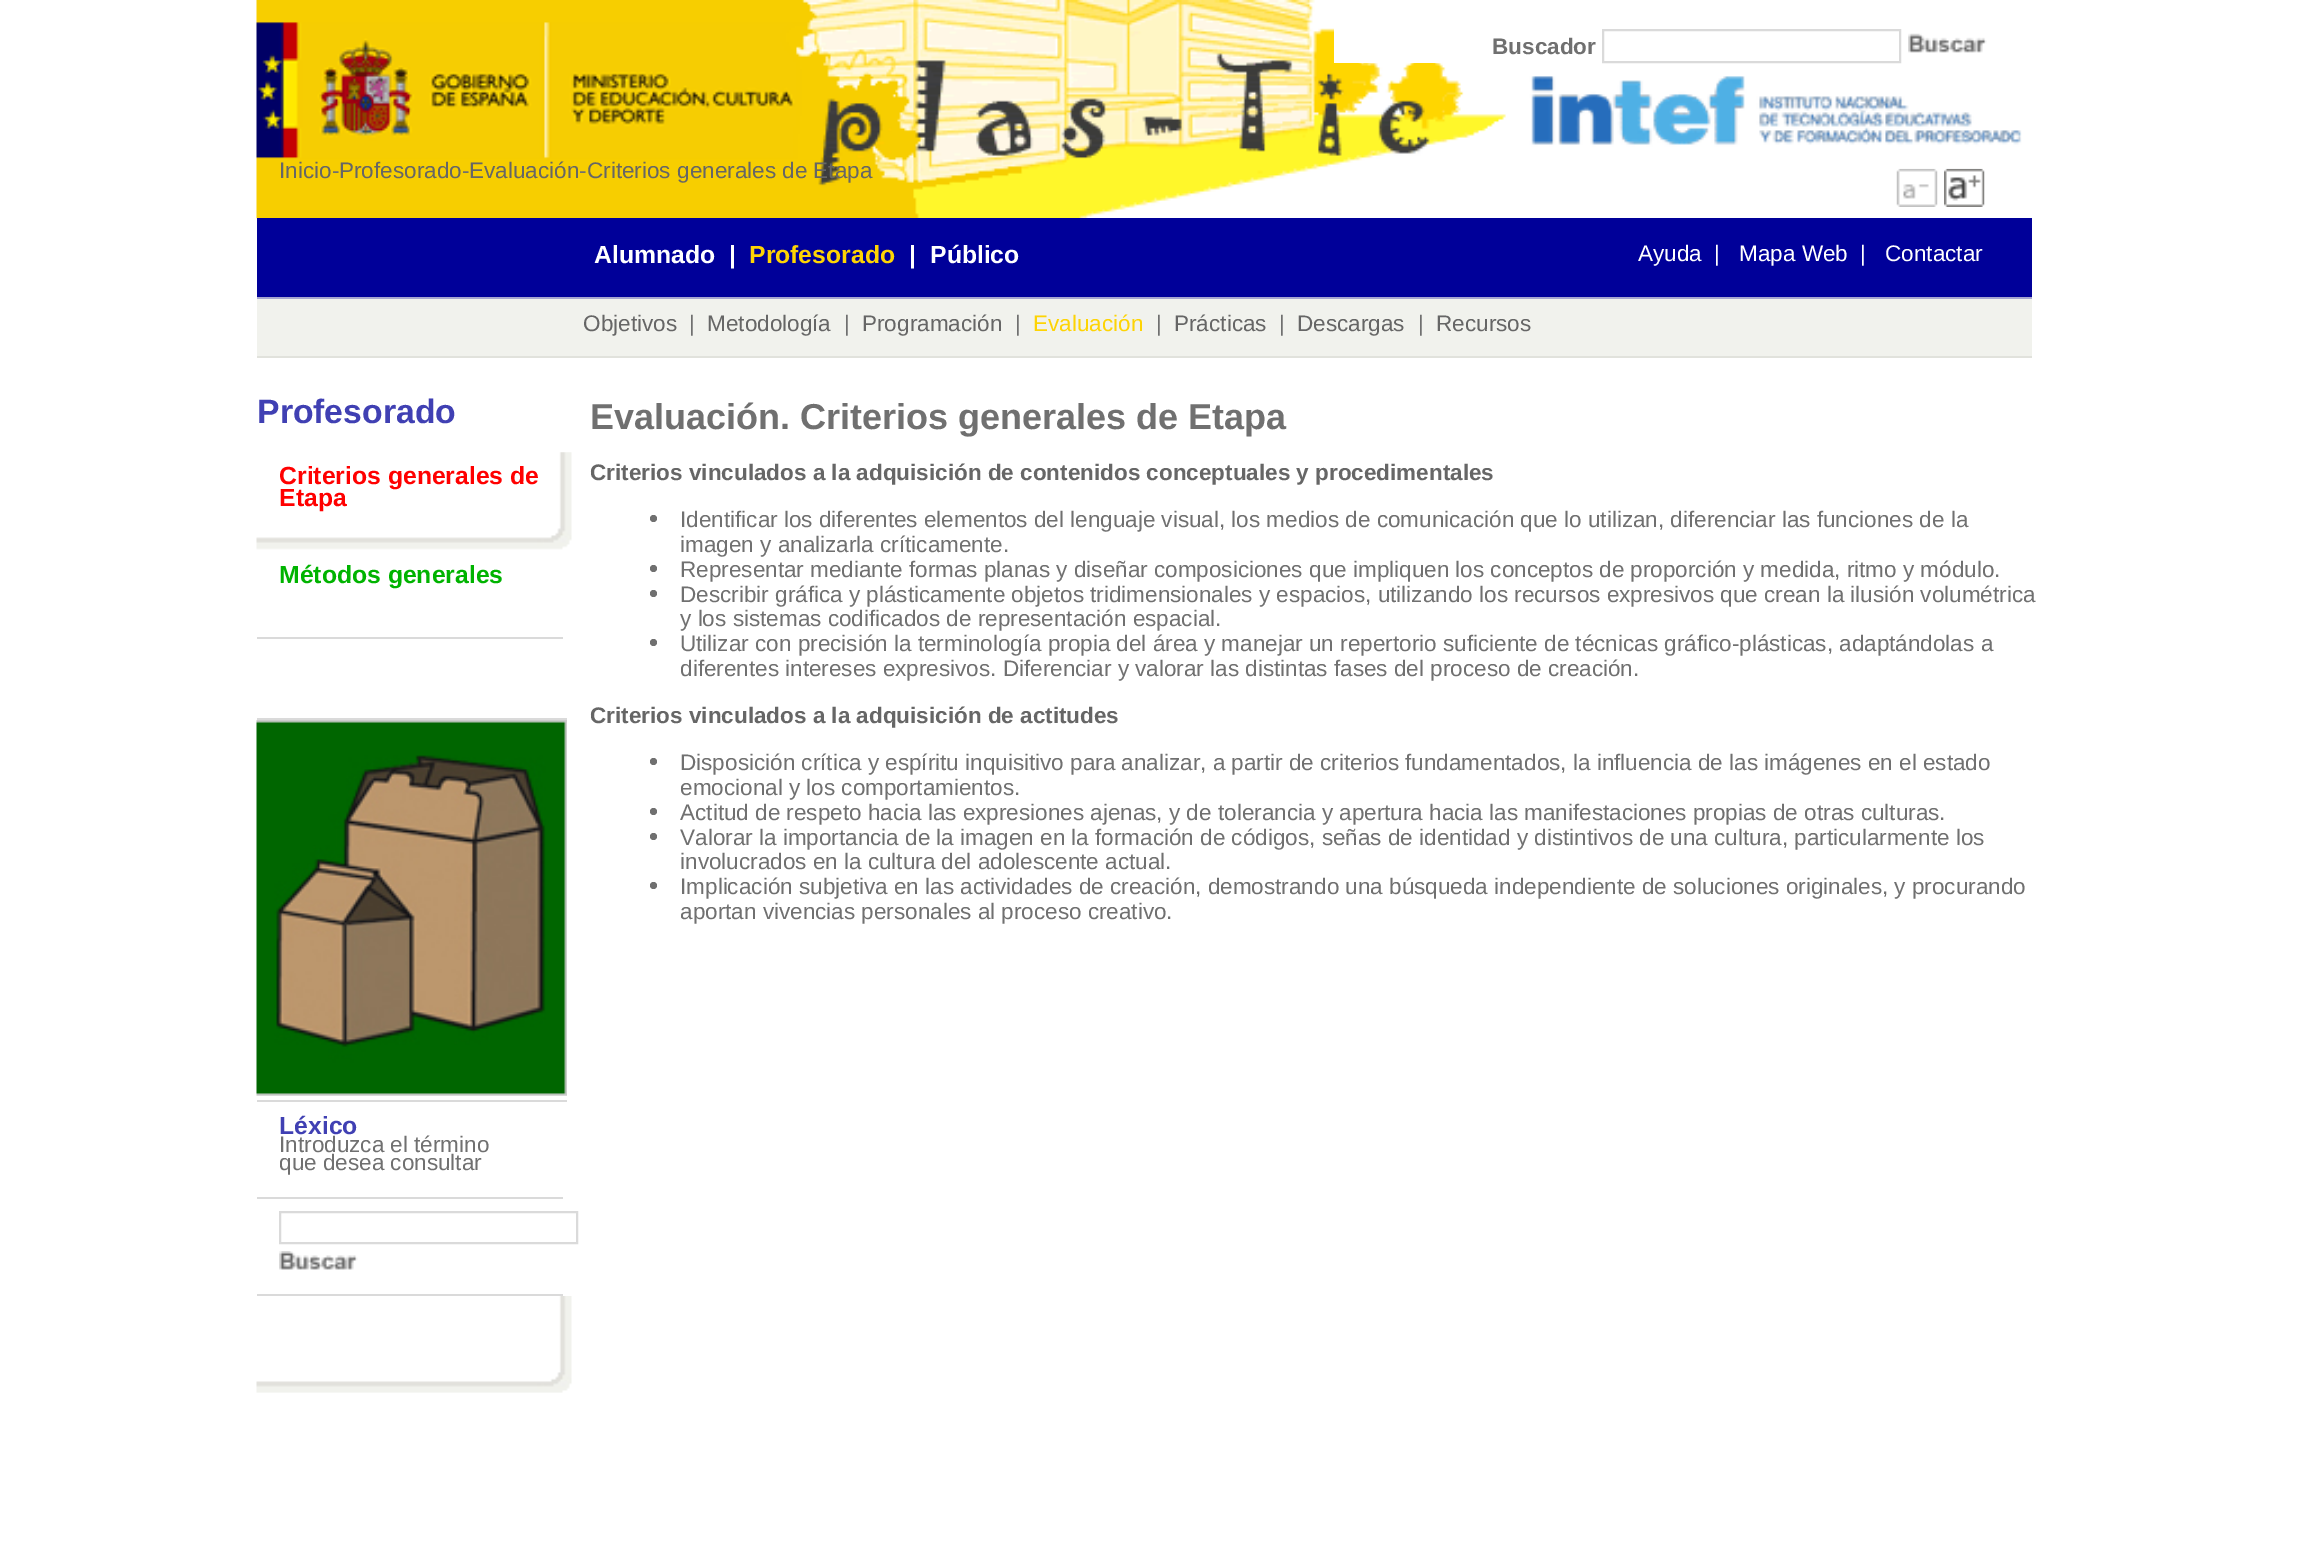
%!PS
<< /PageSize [2302 1549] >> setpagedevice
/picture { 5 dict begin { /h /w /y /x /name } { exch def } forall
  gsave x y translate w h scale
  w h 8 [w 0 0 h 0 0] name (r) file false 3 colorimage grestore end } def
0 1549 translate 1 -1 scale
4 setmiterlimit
1 setgray
0 0 2302 1549 rectfill
(img1.rgb) 256 0 1766 219 picture
1334 28 108 35 rectfill
/LiberationSans-Bold [22.5 0 0 -22.5 0 0] selectfont
0.439 setgray
1492 54 moveto (Buscador) show
0.855 setgray
2 setlinewidth
1603 30 297 32 rectstroke
(img2.rgb) 1908 33 79 20 picture
/LiberationSans-Regular [22.5 0 0 -22.5 0 0] selectfont
0.4 setgray
279 178 moveto (Inicio) show
0.439 setgray
332 178 moveto (-) show
0.4 setgray
339 178 moveto (Profesorado) show
0.439 setgray
462 178 moveto (-) show
0.4 setgray
469 178 moveto (Evaluación) show
0.439 setgray
579 178 moveto (-) show
0.4 setgray
587 178 moveto (Criterios generales de Etapa) show
(img3.rgb) 1896 168 42 39 picture
(img4.rgb) 1944 168 41 39 picture
0 0 0.6 setrgbcolor
257 218 1775 79 rectfill
0.651 0.651 0.816 setrgbcolor
257 297 1775 2 rectfill
/LiberationSans-Bold [24.75 0 0 -24.75 0 0] selectfont
1 setgray
594 263 moveto (Alumnado) show
729 263 moveto (|) show
0.996 0.831 0.016 setrgbcolor
749 263 moveto (Profesorado) show
1 setgray
909 263 moveto (|) show
930 263 moveto (Público) show
/LiberationSans-Regular [22.5 0 0 -22.5 0 0] selectfont
1638 261 moveto (Ayuda) show
1714 261 moveto (|) show
1739 261 moveto (Mapa Web) show
1860 261 moveto (|) show
1885 261 moveto (Contactar) show
0.945 0.949 0.929 setrgbcolor
257 299 1775 57 rectfill
0.882 0.886 0.863 setrgbcolor
257 356 1775 2 rectfill
0.4 setgray
583 331 moveto (Objetivos) show
0.439 setgray
689 331 moveto (|) show
0.4 setgray
707 331 moveto (Metodología) show
0.439 setgray
844 331 moveto (|) show
0.4 setgray
862 331 moveto (Programación) show
0.439 setgray
1015 331 moveto (|) show
0.996 0.831 0.016 setrgbcolor
1033 331 moveto (Evaluación) show
0.439 setgray
1156 331 moveto (|) show
0.4 setgray
1174 331 moveto (Prácticas) show
0.439 setgray
1279 331 moveto (|) show
0.4 setgray
1297 331 moveto (Descargas) show
0.439 setgray
1418 331 moveto (|) show
0.4 setgray
1436 331 moveto (Recursos) show
/LiberationSans-Bold [33.75 0 0 -33.75 0 0] selectfont
0.251 0.251 0.702 setrgbcolor
257 423 moveto (Profesorado) show
(img5.rgb) 256 452 316 98 picture
/LiberationSans-Bold [24.75 0 0 -24.75 0 0] selectfont
1 0 0 setrgbcolor
279 484 moveto (Criterios generales de) show
279 506 moveto (Etapa) show
0.855 setgray
257 637 306 2 rectfill
0 0.702 0 setrgbcolor
279 583 moveto (Métodos generales) show
0.855 setgray
257 718 310 2 rectfill
257 1100 310 2 rectfill
(img6.rgb) 256 720 311 376 picture
257 1197 306 2 rectfill
0.251 0.251 0.702 setrgbcolor
279 1134 moveto (Léxico) show
/LiberationSans-Regular [22.5 0 0 -22.5 0 0] selectfont
0.439 setgray
279 1152 moveto (Introduzca el término) show
279 1170 moveto (que desea consultar) show
0.855 setgray
257 1294 306 2 rectfill
280 1212 297 31 rectstroke
(img7.rgb) 279 1251 79 19 picture
(img8.rgb) 256 1296 316 97 picture
/LiberationSans-Bold [36 0 0 -36 0 0] selectfont
0.439 setgray
590 429 moveto (Evaluación. Criterios generales de Etapa) show
/LiberationSans-Bold [22.5 0 0 -22.5 0 0] selectfont
0.4 setgray
590 480 moveto (Criterios vinculados a la adquisición de contenidos conceptuales y procedimentales) show
0.439 setgray
newpath 653.5 518.5 3.5 0 360 arc closepath fill
/LiberationSans-Regular [22.5 0 0 -22.5 0 0] selectfont
680 527 moveto (Identificar los diferentes elementos del lenguaje visual, los medios de comunicación que lo utilizan, diferenciar las funciones de la) show
680 552 moveto (imagen y analizarla críticamente.) show
newpath 653.5 568.5 3.5 0 360 arc closepath fill
680 577 moveto (Representar mediante formas planas y diseñar composiciones que impliquen los conceptos de proporción y medida, ritmo y módulo.) show
newpath 653.5 593.5 3.5 0 360 arc closepath fill
680 602 moveto (Describir gráfica y plásticamente objetos tridimensionales y espacios, utilizando los recursos expresivos que crean la ilusión volumétrica) show
680 626 moveto (y los sistemas codificados de representación espacial.) show
newpath 653.5 642.5 3.5 0 360 arc closepath fill
680 651 moveto (Utilizar con precisión la terminología propia del área y manejar un repertorio suficiente de técnicas gráfico-plásticas, adaptándolas a) show
680 676 moveto (diferentes intereses expresivos. Diferenciar y valorar las distintas fases del proceso de creación.) show
/LiberationSans-Bold [22.5 0 0 -22.5 0 0] selectfont
0.4 setgray
590 723 moveto (Criterios vinculados a la adquisición de actitudes) show
0.439 setgray
newpath 653.5 761.5 3.5 0 360 arc closepath fill
/LiberationSans-Regular [22.5 0 0 -22.5 0 0] selectfont
680 770 moveto (Disposición crítica y espíritu inquisitivo para analizar, a partir de criterios fundamentados, la influencia de las imágenes en el estado) show
680 795 moveto (emocional y los comportamientos.) show
newpath 653.5 811.5 3.5 0 360 arc closepath fill
680 820 moveto (Actitud de respeto hacia las expresiones ajenas, y de tolerancia y apertura hacia las manifestaciones propias de otras culturas.) show
newpath 653.5 836.5 3.5 0 360 arc closepath fill
680 845 moveto (Valorar la importancia de la imagen en la formación de códigos, señas de identidad y distintivos de una cultura, particularmente los) show
680 869 moveto (involucrados en la cultura del adolescente actual.) show
newpath 653.5 885.5 3.5 0 360 arc closepath fill
680 894 moveto (Implicación subjetiva en las actividades de creación, demostrando una búsqueda independiente de soluciones originales, y procurando) show
680 919 moveto (aportan vivencias personales al proceso creativo.) show
showpage
